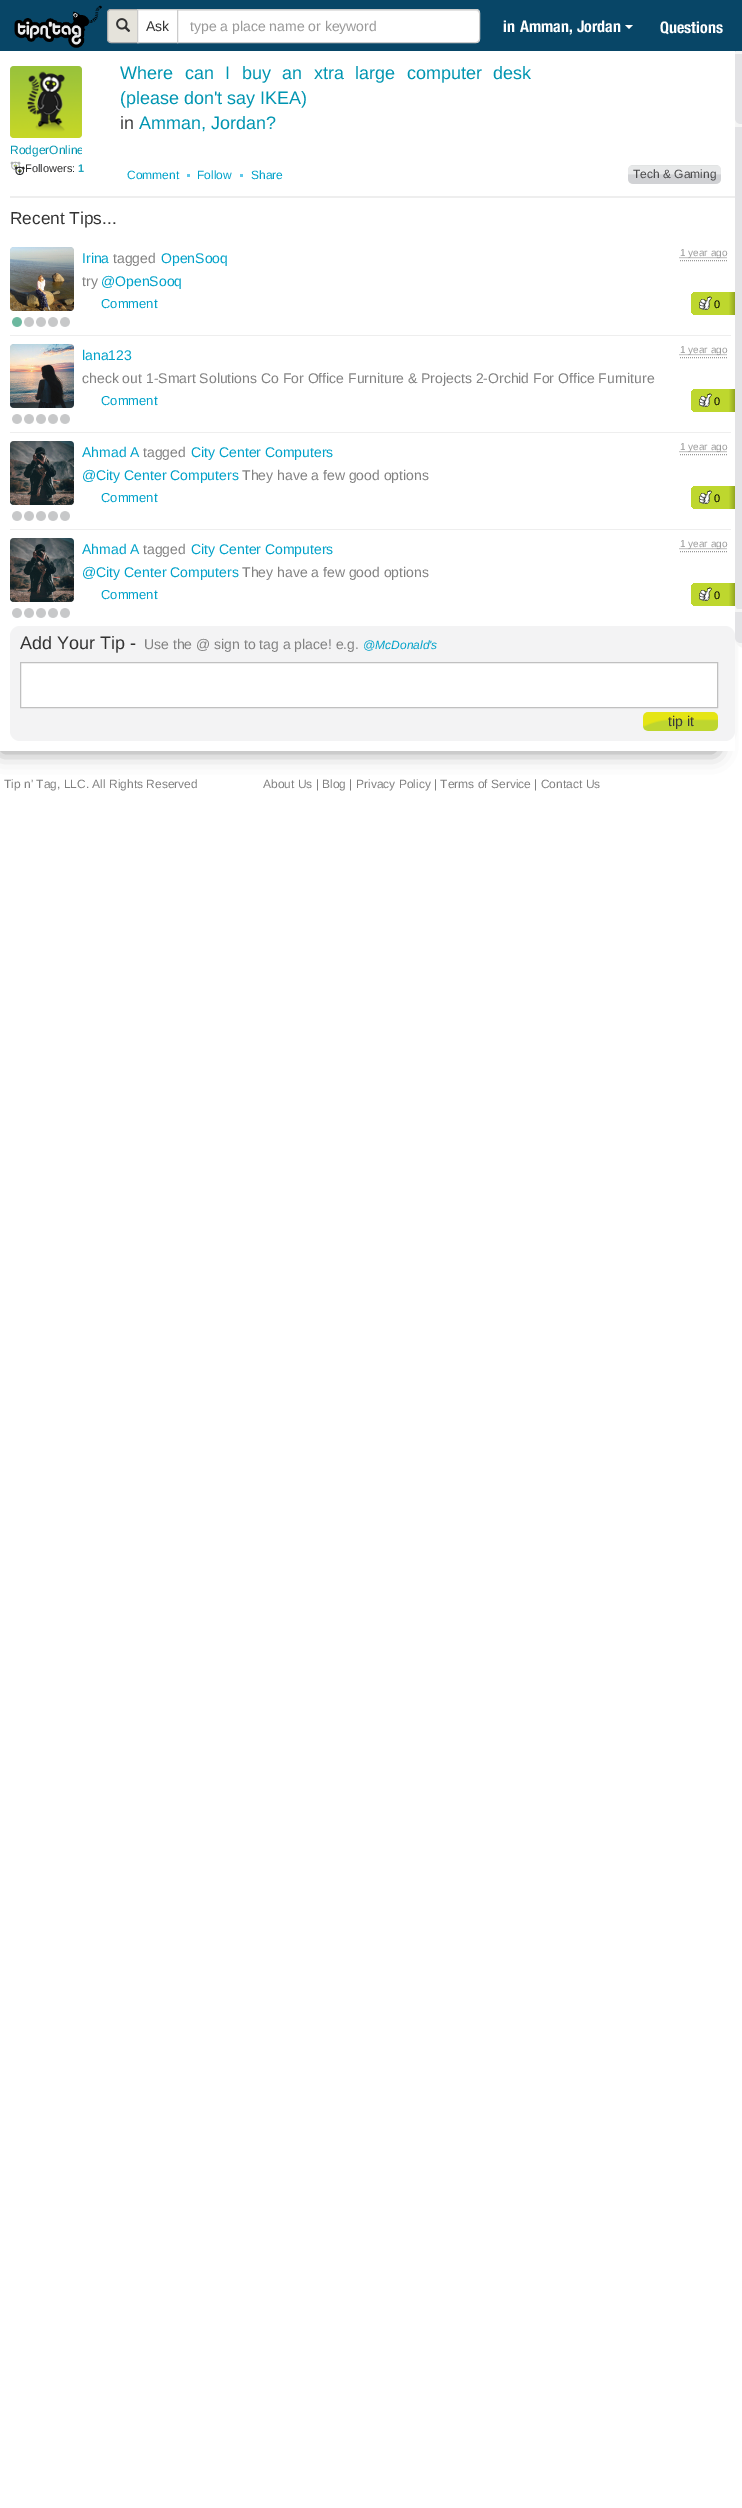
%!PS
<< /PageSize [742 2508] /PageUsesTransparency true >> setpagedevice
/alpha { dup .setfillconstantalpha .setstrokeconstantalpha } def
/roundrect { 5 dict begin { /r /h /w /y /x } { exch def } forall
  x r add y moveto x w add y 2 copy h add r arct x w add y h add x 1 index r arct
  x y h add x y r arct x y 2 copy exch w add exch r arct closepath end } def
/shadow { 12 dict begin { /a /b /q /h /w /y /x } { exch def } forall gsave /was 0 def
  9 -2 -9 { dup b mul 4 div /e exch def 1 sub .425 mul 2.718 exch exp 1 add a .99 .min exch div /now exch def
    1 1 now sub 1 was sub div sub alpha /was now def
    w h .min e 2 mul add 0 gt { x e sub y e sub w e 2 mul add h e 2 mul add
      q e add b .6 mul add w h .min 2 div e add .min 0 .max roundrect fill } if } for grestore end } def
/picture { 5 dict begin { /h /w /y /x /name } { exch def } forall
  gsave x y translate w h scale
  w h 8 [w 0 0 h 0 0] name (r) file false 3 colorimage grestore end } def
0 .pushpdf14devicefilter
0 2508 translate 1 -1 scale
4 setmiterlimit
1 setgray
0 0 742 2508 rectfill
gsave
newpath 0 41 moveto 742 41 lineto 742 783 lineto 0 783 lineto closepath 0 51 moveto 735 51 lineto 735 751 lineto 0 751 lineto closepath eoclip newpath
0.6 setgray
1 72 715 680 0 10 1 shadow
grestore
gsave
newpath 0 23 moveto 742 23 lineto 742 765 lineto 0 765 lineto closepath 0 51 moveto 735 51 lineto 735 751 lineto 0 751 lineto closepath eoclip newpath
0.6 setgray
0 54 715 680 0 10 1 shadow
grestore
0.031 0.275 0.404 setrgbcolor
0 0 742 51 rectfill
(img1.rgb) 14 5 88 43 picture
0.898 0.89 0.859 setrgbcolor
newpath 111 9.5 moveto 138.5 9.5 lineto 138.5 42.5 lineto 111 42.5 lineto 109 42.5 107.5 41 107.5 39 curveto 107.5 13 lineto 107.5 11 109 9.5 111 9.5 curveto closepath gsave fill grestore
0.678 setgray
stroke
(img2.rgb) 116 18 15 14 picture
1 setgray
newpath 137.5 9.5 moveto 177.5 9.5 lineto 177.5 42.5 lineto 137.5 42.5 lineto closepath gsave fill grestore
0.8 setgray
stroke
/LiberationSans-Regular [14 0 0 -14 0 0] selectfont
0.2 setgray
146 31 moveto (Ask) show
1 setgray
newpath 177 9 moveto 476 9 lineto 478 9 480 11 480 13 curveto 480 39 lineto 480 41 478 43 476 43 curveto 177 43 lineto closepath fill
0.925 setgray
newpath 178 11 moveto 476 11 lineto 478 11 479 12 479 14 curveto 479 12 478 10 476 10 curveto 178 10 lineto closepath fill
0.8 setgray
newpath 177.5 9.5 moveto 476 9.5 lineto 478 9.5 479.5 11 479.5 13 curveto 479.5 39 lineto 479.5 41 478 42.5 476 42.5 curveto 177.5 42.5 lineto closepath stroke
0.6 setgray
190 31 moveto (type a place name or keyword) show
/HelveticaNeue-Bold [16 0 0 -16 0 0] selectfont
1 setgray
503 32 moveto (in) show
520 32 moveto (Amman, Jordan) show
newpath 625 25 moveto 633 25 lineto 629 29 lineto closepath fill
660 33 moveto (Questions) show
(img3.rgb) 10 66 72 72 picture
gsave
10 143 72 15 rectclip
/LiberationSans-Regular [12 0 0 -12 0 0] selectfont
0 0.584 0.694 setrgbcolor
10 154 moveto (RodgerOnline) show
grestore
(img4.rgb) 10 161 15 14 picture
/LiberationSans-Regular [11 0 0 -11 0 0] selectfont
0.169 0.169 0.173 setrgbcolor
25 172 moveto (Followers:) show
/LiberationSans-Bold [11 0 0 -11 0 0] selectfont
0.129 0.643 0.737 setrgbcolor
78 172 moveto (1) show
/LiberationSans-Regular [18 0 0 -18 0 0] selectfont
0 0.584 0.694 setrgbcolor
120 79 moveto 6.5 0 32 (Where can I buy an xtra large computer desk) widthshow
120 104 moveto (\(please don't say IKEA\)) show
0.224 0.224 0.227 setrgbcolor
120 129 moveto (in) show
0 0.584 0.694 setrgbcolor
139 129 moveto (Amman, Jordan?) show
/LiberationSans-Regular [12 0 0 -12 0 0] selectfont
0 0.631 0.788 setrgbcolor
127 179 moveto (Comment) show
0.373 0.784 0.918 setrgbcolor
187 174 3 3 rectfill
0 0.631 0.788 setrgbcolor
197 179 moveto (Follow) show
0.373 0.784 0.918 setrgbcolor
240 174 3 3 rectfill
0 0.631 0.788 setrgbcolor
251 179 moveto (Share) show
(img5.rgb) 628 165 93 19 picture
0.286 0.286 0.29 setrgbcolor
633 178 moveto (Tech & Gaming) show
0.933 setgray
10 196 725 2 rectfill
/LiberationSans-Regular [17.25 0 0 -17.25 0 0] selectfont
0.2 setgray
10 224 moveto (Recent Tips...) show
0.933 setgray
10 335 721 1 rectfill
(img6.rgb) 10 247 64 64 picture
(img7.rgb) 12 317 10 10 picture
(img8.rgb) 24 317 10 10 picture
(img8.rgb) 36 317 10 10 picture
(img8.rgb) 48 317 10 10 picture
(img8.rgb) 60 317 10 10 picture
/LiberationSans-Regular [14 0 0 -14 0 0] selectfont
0 0.631 0.788 setrgbcolor
82 263 moveto (Irina) show
0.506 setgray
113 263 moveto (tagged) show
0 0.631 0.788 setrgbcolor
161 263 moveto (OpenSooq) show
0.6 setgray
[1 1] 0 setdash
newpath 680 260.5 moveto 727 260.5 lineto 679.5 257.5 moveto 727 257.5 lineto stroke
/LiberationSans-Regular [10 0 0 -10 0 0] selectfont
680 256 moveto (1 year ago) show
/LiberationSans-Regular [14 0 0 -14 0 0] selectfont
0.506 setgray
82 286 moveto (try) show
0 0.631 0.788 setrgbcolor
101 286 moveto (@OpenSooq) show
gsave newpath 697 292 moveto 735 292 lineto 735 315 lineto 697 315 lineto 693.5 315 691 312.5 691 309 curveto 691 298 lineto 691 294.5 693.5 292 697 292 curveto closepath clip newpath
<< /ShadingType 2 /ColorSpace /DeviceRGB /Coords [735 304 691 304] /Extend [true true] /Function << /FunctionType 3 /Domain [0 1] /Functions [<< /FunctionType 2 /Domain [0 1] /C0 [0.569 0.643 0.137] /C1 [0.745 0.843 0.18] /N 1 >> << /FunctionType 2 /Domain [0 1] /C0 [0.745 0.843 0.18] /C1 [0.745 0.843 0.18] /N 1 >>] /Bounds [0.14] /Encode [0 1 0 1] >> >> shfill grestore
(img9.rgb) 699 296 13 14 picture
/LiberationSans-Regular [11 0 0 -11 0 0] selectfont
0 setgray
714 308 moveto (0) show
/LiberationSans-Regular [13 0 0 -13 0 0] selectfont
0 0.631 0.788 setrgbcolor
101 308 moveto (Comment) show
0.933 setgray
10 432 721 1 rectfill
(img10.rgb) 10 344 64 64 picture
(img8.rgb) 12 414 10 10 picture
(img8.rgb) 24 414 10 10 picture
(img8.rgb) 36 414 10 10 picture
(img8.rgb) 48 414 10 10 picture
(img8.rgb) 60 414 10 10 picture
/LiberationSans-Regular [14 0 0 -14 0 0] selectfont
0 0.631 0.788 setrgbcolor
82 360 moveto (lana123) show
0.6 setgray
newpath 680 357.5 moveto 727 357.5 lineto 679.5 354.5 moveto 727 354.5 lineto stroke
/LiberationSans-Regular [10 0 0 -10 0 0] selectfont
680 353 moveto (1 year ago) show
/LiberationSans-Regular [14 0 0 -14 0 0] selectfont
0.506 setgray
82 383 moveto (check out 1-Smart Solutions Co For Office Furniture & Projects 2-Orchid For Office Furniture) show
gsave newpath 697 389 moveto 735 389 lineto 735 412 lineto 697 412 lineto 693.5 412 691 409.5 691 406 curveto 691 395 lineto 691 391.5 693.5 389 697 389 curveto closepath clip newpath
<< /ShadingType 2 /ColorSpace /DeviceRGB /Coords [735 401 691 401] /Extend [true true] /Function << /FunctionType 3 /Domain [0 1] /Functions [<< /FunctionType 2 /Domain [0 1] /C0 [0.569 0.643 0.137] /C1 [0.745 0.843 0.18] /N 1 >> << /FunctionType 2 /Domain [0 1] /C0 [0.745 0.843 0.18] /C1 [0.745 0.843 0.18] /N 1 >>] /Bounds [0.14] /Encode [0 1 0 1] >> >> shfill grestore
(img9.rgb) 699 393 13 14 picture
/LiberationSans-Regular [11 0 0 -11 0 0] selectfont
0 setgray
714 405 moveto (0) show
/LiberationSans-Regular [13 0 0 -13 0 0] selectfont
0 0.631 0.788 setrgbcolor
101 405 moveto (Comment) show
0.933 setgray
10 529 721 1 rectfill
(img11.rgb) 10 441 64 64 picture
(img8.rgb) 12 511 10 10 picture
(img8.rgb) 24 511 10 10 picture
(img8.rgb) 36 511 10 10 picture
(img8.rgb) 48 511 10 10 picture
(img8.rgb) 60 511 10 10 picture
/LiberationSans-Regular [14 0 0 -14 0 0] selectfont
0 0.631 0.788 setrgbcolor
82 457 moveto (Ahmad A) show
0.506 setgray
143 457 moveto (tagged) show
0 0.631 0.788 setrgbcolor
191 457 moveto (City Center Computers) show
0.6 setgray
newpath 680 454.5 moveto 727 454.5 lineto 679.5 451.5 moveto 727 451.5 lineto stroke
/LiberationSans-Regular [10 0 0 -10 0 0] selectfont
680 450 moveto (1 year ago) show
/LiberationSans-Regular [14 0 0 -14 0 0] selectfont
0 0.631 0.788 setrgbcolor
82 480 moveto (@City Center Computers) show
0.506 setgray
242 480 moveto (They have a few good options) show
gsave newpath 697 486 moveto 735 486 lineto 735 509 lineto 697 509 lineto 693.5 509 691 506.5 691 503 curveto 691 492 lineto 691 488.5 693.5 486 697 486 curveto closepath clip newpath
<< /ShadingType 2 /ColorSpace /DeviceRGB /Coords [735 498 691 498] /Extend [true true] /Function << /FunctionType 3 /Domain [0 1] /Functions [<< /FunctionType 2 /Domain [0 1] /C0 [0.569 0.643 0.137] /C1 [0.745 0.843 0.18] /N 1 >> << /FunctionType 2 /Domain [0 1] /C0 [0.745 0.843 0.18] /C1 [0.745 0.843 0.18] /N 1 >>] /Bounds [0.14] /Encode [0 1 0 1] >> >> shfill grestore
(img9.rgb) 699 490 13 14 picture
/LiberationSans-Regular [11 0 0 -11 0 0] selectfont
0 setgray
714 502 moveto (0) show
/LiberationSans-Regular [13 0 0 -13 0 0] selectfont
0 0.631 0.788 setrgbcolor
101 502 moveto (Comment) show
(img11.rgb) 10 538 64 64 picture
(img8.rgb) 12 608 10 10 picture
(img8.rgb) 24 608 10 10 picture
(img8.rgb) 36 608 10 10 picture
(img8.rgb) 48 608 10 10 picture
(img8.rgb) 60 608 10 10 picture
/LiberationSans-Regular [14 0 0 -14 0 0] selectfont
82 554 moveto (Ahmad A) show
0.506 setgray
143 554 moveto (tagged) show
0 0.631 0.788 setrgbcolor
191 554 moveto (City Center Computers) show
0.6 setgray
newpath 680 551.5 moveto 727 551.5 lineto 679.5 548.5 moveto 727 548.5 lineto stroke
/LiberationSans-Regular [10 0 0 -10 0 0] selectfont
680 547 moveto (1 year ago) show
/LiberationSans-Regular [14 0 0 -14 0 0] selectfont
0 0.631 0.788 setrgbcolor
82 577 moveto (@City Center Computers) show
0.506 setgray
242 577 moveto (They have a few good options) show
gsave newpath 697 583 moveto 735 583 lineto 735 606 lineto 697 606 lineto 693.5 606 691 603.5 691 600 curveto 691 589 lineto 691 585.5 693.5 583 697 583 curveto closepath clip newpath
<< /ShadingType 2 /ColorSpace /DeviceRGB /Coords [735 595 691 595] /Extend [true true] /Function << /FunctionType 3 /Domain [0 1] /Functions [<< /FunctionType 2 /Domain [0 1] /C0 [0.569 0.643 0.137] /C1 [0.745 0.843 0.18] /N 1 >> << /FunctionType 2 /Domain [0 1] /C0 [0.745 0.843 0.18] /C1 [0.745 0.843 0.18] /N 1 >>] /Bounds [0.14] /Encode [0 1 0 1] >> >> shfill grestore
(img9.rgb) 699 587 13 14 picture
/LiberationSans-Regular [11 0 0 -11 0 0] selectfont
0 setgray
714 599 moveto (0) show
/LiberationSans-Regular [13 0 0 -13 0 0] selectfont
0 0.631 0.788 setrgbcolor
101 599 moveto (Comment) show
0.953 0.953 0.957 setrgbcolor
10 626 725 115 10 roundrect fill
/LiberationSans-Regular [18 0 0 -18 0 0] selectfont
0.2 setgray
20 649 moveto (Add Your Tip -) show
/LiberationSans-Regular [14 0 0 -14 0 0] selectfont
0.506 setgray
144 649 moveto (Use the @ sign to tag a place! e.g.) show
/LiberationSans-Italic [12 0 0 -12 0 0] selectfont
0 0.631 0.788 setrgbcolor
363 649 moveto (@McDonald's) show
1 setgray
newpath 20.5 662.5 moveto 717.5 662.5 lineto 717.5 707.5 lineto 20.5 707.5 lineto closepath gsave fill grestore
0.753 setgray
[] 0 setdash
stroke
(img12.rgb) 643 712 75 19 picture
/LiberationSans-Regular [14 0 0 -14 0 0] selectfont
0.224 0.224 0.227 setrgbcolor
668 726 moveto (tip it) show
0.961 setgray
newpath 735 51 moveto 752 51 lineto 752 638 lineto 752 643.5 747.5 648 742 648 curveto 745 648 lineto 739.5 648 735 643.5 735 638 curveto closepath fill
0.89 0.89 0.902 setrgbcolor
newpath 735 51 moveto 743 51 lineto 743 51.5 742.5 52 742 52 curveto 736 52 lineto 735.5 52 735 51.5 735 51 curveto closepath fill
0.961 setgray
736 51 6 1 rectfill
0.89 0.89 0.902 setrgbcolor
newpath 735 54 moveto 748 54 lineto 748 118 lineto 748 121.5 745.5 124 742 124 curveto 741 124 lineto 737.5 124 735 121.5 735 118 curveto closepath fill
newpath 735 127 moveto 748 127 lineto 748 604 lineto 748 607.5 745.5 610 742 610 curveto 741 610 lineto 737.5 610 735 607.5 735 604 curveto closepath fill
0.961 setgray
738 609 4 1 rectfill
0.89 0.89 0.902 setrgbcolor
newpath 735 612 moveto 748 612 lineto 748 637 lineto 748 640.5 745.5 643 742 643 curveto 741 643 lineto 737.5 643 735 640.5 735 637 curveto closepath fill
/LiberationSans-Regular [12 0 0 -12 0 0] selectfont
0.506 setgray
4 788 moveto (Tip n' Tag, LLC. All Rights Reserved) show
263 788 moveto (About Us | Blog | Privacy Policy | Terms of Service | Contact Us) show
.poppdf14devicefilter showpage
